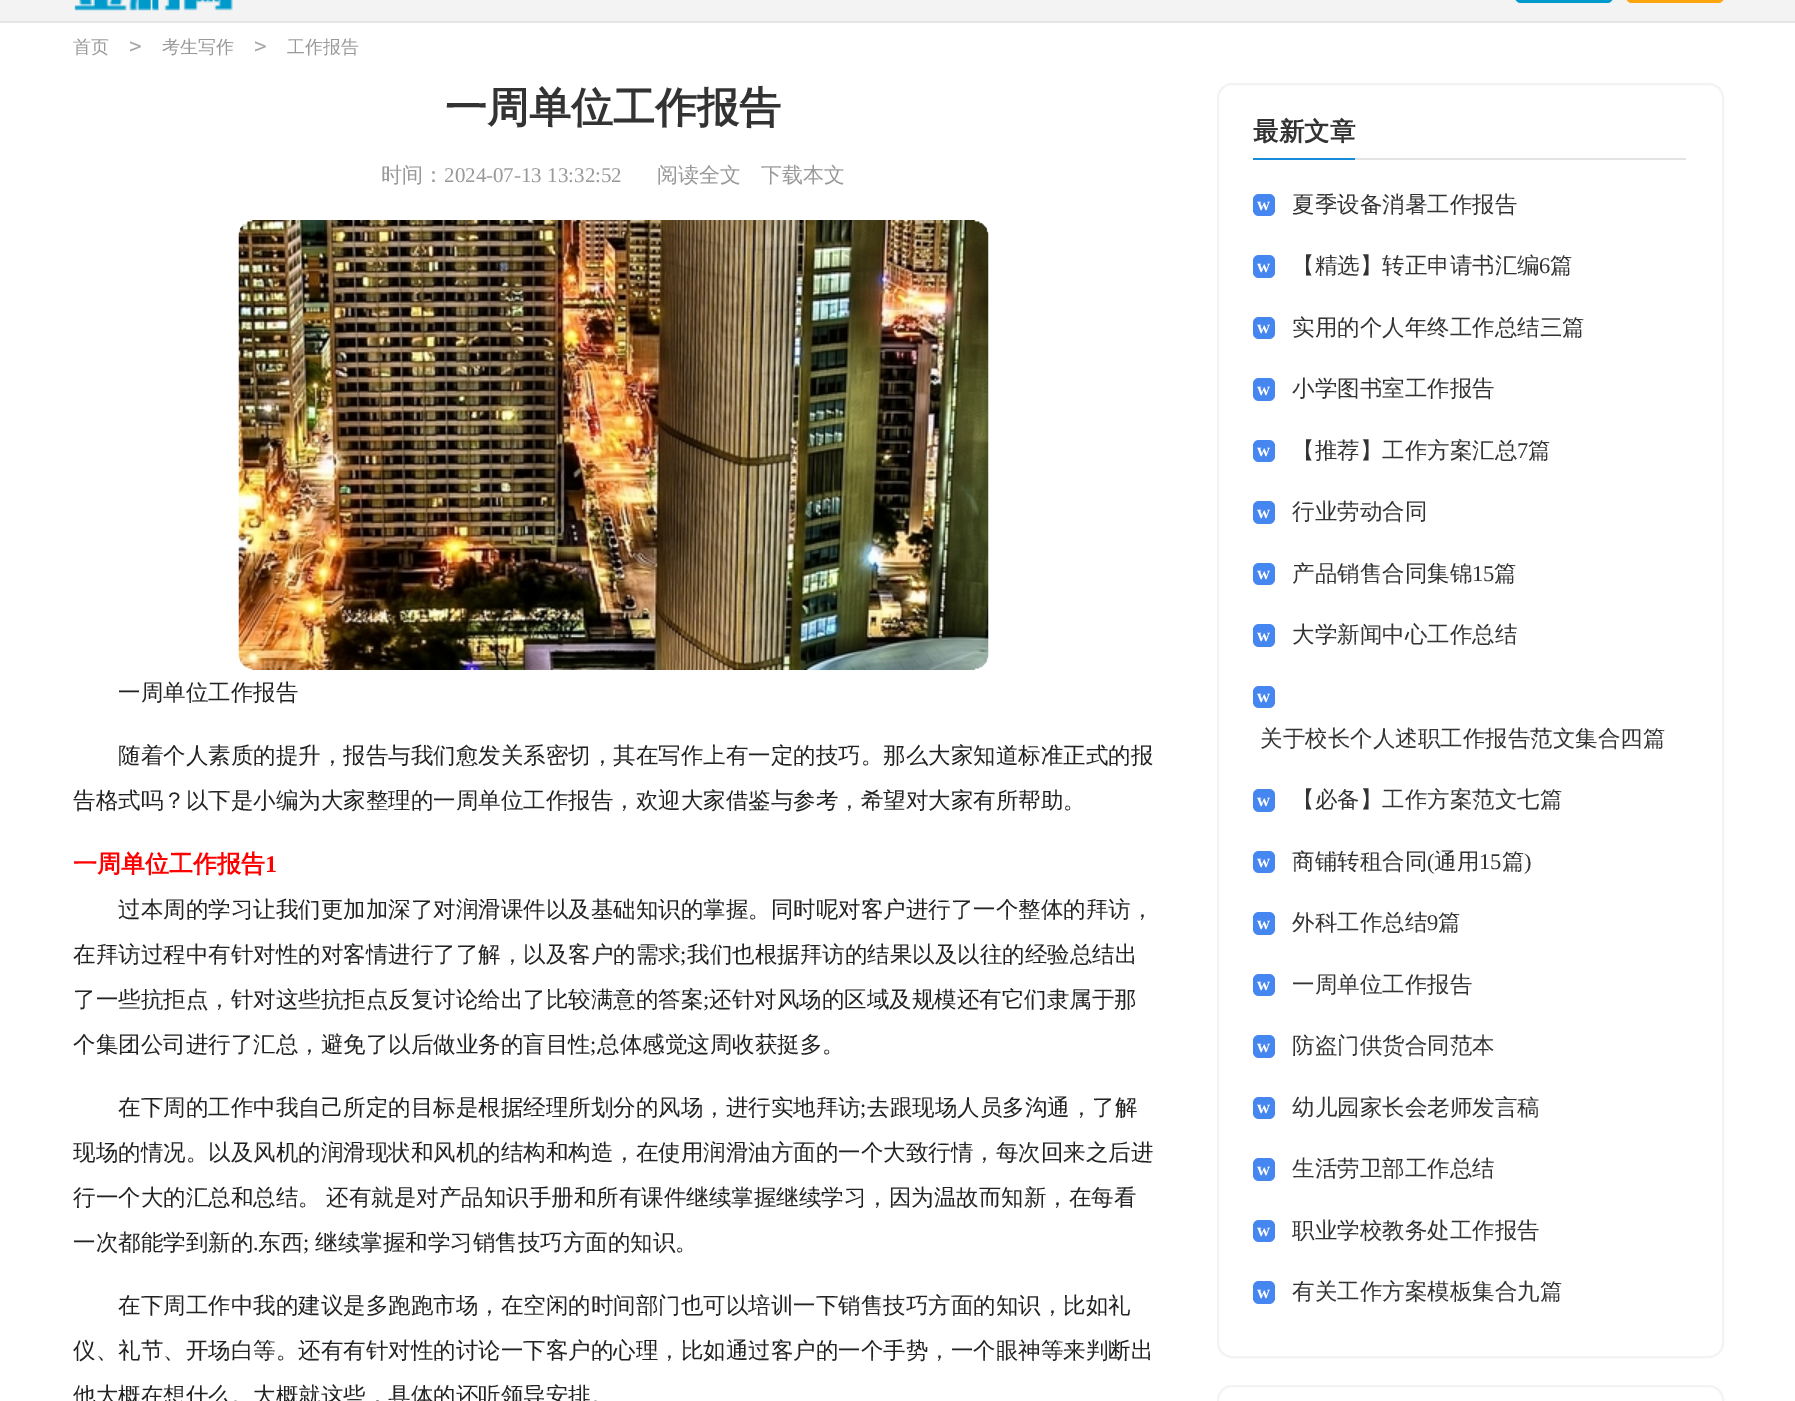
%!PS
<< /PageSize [1795 1401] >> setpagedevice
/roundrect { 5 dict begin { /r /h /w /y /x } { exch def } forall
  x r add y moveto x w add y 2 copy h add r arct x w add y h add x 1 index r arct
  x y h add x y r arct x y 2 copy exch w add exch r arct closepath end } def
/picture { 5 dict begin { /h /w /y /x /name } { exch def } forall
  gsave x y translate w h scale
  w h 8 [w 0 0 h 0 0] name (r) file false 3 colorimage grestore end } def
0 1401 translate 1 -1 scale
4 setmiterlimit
1 setgray
0 0 1795 1401 rectfill
0.953 setgray
0 0 1795 21 rectfill
0.902 setgray
0 21 1795 2 rectfill
0 0.6 0.796 setrgbcolor
1515 -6 98 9 6 roundrect fill
1 0.651 0.059 setrgbcolor
1626 -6 98 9 6 roundrect fill
(img1.rgb) 74 0 159 11 picture
/WenQuanYiZenHei-Medium [18 0 0 -18 0 0] selectfont
0.6 setgray
73 53 moveto (首页) show
/DejaVuSansMono-Regular [21 0 0 -21 0 0] selectfont
0.647 setgray
129 53 moveto (>) show
/WenQuanYiZenHei-Medium [18 0 0 -18 0 0] selectfont
0.6 setgray
162 53 moveto (考生写作) show
/DejaVuSansMono-Regular [21 0 0 -21 0 0] selectfont
0.647 setgray
254 53 moveto (>) show
/WenQuanYiZenHei-Medium [18 0 0 -18 0 0] selectfont
0.6 setgray
287 53 moveto (工作报告) show
/WenQuanYiZenHei-Bold [42 0 0 -42 0 0] selectfont
0.2 setgray
445 122 moveto (一周单位工作报告) show
/WenQuanYiZenHei-Medium [21 0 0 -21 0 0] selectfont
0.6 setgray
381 182 moveto (时间：) show
/LiberationSerif-Regular [21 0 0 -21 0 0] selectfont
444 182 moveto (2024-07-13 13:32:52) show
/WenQuanYiZenHei-Medium [21 0 0 -21 0 0] selectfont
657 182 moveto (阅读全文) show
761 182 moveto (下载本文) show
(img2.rgb) 238 220 751 450 picture
/WenQuanYiZenHei-Medium [22.5 0 0 -22.5 0 0] selectfont
0.133 setgray
118 700 moveto (一周单位工作报告) show
118 763 moveto (随着个人素质的提升，报告与我们愈发关系密切，其在写作上有一定的技巧。那么大家知道标准正式的报) show
73 808 moveto (告格式吗？以下是小编为大家整理的一周单位工作报告，欢迎大家借鉴与参考，希望对大家有所帮助。) show
/WenQuanYiZenHei-Bold [24 0 0 -24 0 0] selectfont
1 0 0 setrgbcolor
73 872 moveto (一周单位工作报告) show
/LiberationSerif-Bold [24 0 0 -24 0 0] selectfont
265 872 moveto (1) show
/WenQuanYiZenHei-Medium [22.5 0 0 -22.5 0 0] selectfont
0.133 setgray
118 917 moveto (过本周的学习让我们更加加深了对润滑课件以及基础知识的掌握。同时呢对客户进行了一个整体的拜访，) show
73 962 moveto (在拜访过程中有针对性的对客情进行了了解，以及客户的需求) show
/LiberationSerif-Regular [22.5 0 0 -22.5 0 0] selectfont
680 962 moveto (;) show
/WenQuanYiZenHei-Medium [22.5 0 0 -22.5 0 0] selectfont
687 962 moveto (我们也根据拜访的结果以及以往的经验总结出) show
73 1007 moveto (了一些抗拒点，针对这些抗拒点反复讨论给出了比较满意的答案) show
/LiberationSerif-Regular [22.5 0 0 -22.5 0 0] selectfont
703 1007 moveto (;) show
/WenQuanYiZenHei-Medium [22.5 0 0 -22.5 0 0] selectfont
709 1007 moveto (还针对风场的区域及规模还有它们隶属于那) show
73 1052 moveto (个集团公司进行了汇总，避免了以后做业务的盲目性) show
/LiberationSerif-Regular [22.5 0 0 -22.5 0 0] selectfont
590 1052 moveto (;) show
/WenQuanYiZenHei-Medium [22.5 0 0 -22.5 0 0] selectfont
597 1052 moveto (总体感觉这周收获挺多。) show
118 1115 moveto (在下周的工作中我自己所定的目标是根据经理所划分的风场，进行实地拜访) show
/LiberationSerif-Regular [22.5 0 0 -22.5 0 0] selectfont
860 1115 moveto (;) show
/WenQuanYiZenHei-Medium [22.5 0 0 -22.5 0 0] selectfont
867 1115 moveto (去跟现场人员多沟通，了解) show
73 1160 moveto (现场的情况。以及风机的润滑现状和风机的结构和构造，在使用润滑油方面的一个大致行情，每次回来之后进) show
73 1205 moveto -1 0 32 (行一个大的汇总和总结。 还有就是对产品知识手册和所有课件继续掌握继续学习，因为温故而知新，在每看) widthshow
73 1250 moveto (一次都能学到新的) show
/LiberationSerif-Regular [22.5 0 0 -22.5 0 0] selectfont
253 1250 moveto (.) show
/WenQuanYiZenHei-Medium [22.5 0 0 -22.5 0 0] selectfont
258 1250 moveto (东西) show
/LiberationSerif-Regular [22.5 0 0 -22.5 0 0] selectfont
303 1250 moveto (;) show
/WenQuanYiZenHei-Medium [22.5 0 0 -22.5 0 0] selectfont
315 1250 moveto (继续掌握和学习销售技巧方面的知识。) show
118 1313 moveto (在下周工作中我的建议是多跑跑市场，在空闲的时间部门也可以培训一下销售技巧方面的知识，比如礼) show
73 1358 moveto (仪、礼节、开场白等。还有有针对性的讨论一下客户的心理，比如通过客户的一个手势，一个眼神等来判断出) show
73 1403 moveto (他大概在想什么。大概就这些，具体的还听领导安排。) show
0.953 setgray
2 setlinewidth
1218 84 505 1273 14 roundrect stroke
0.89 setgray
1355 158 331 2 rectfill
0.094 0.545 0.847 setrgbcolor
1253 158 102 2 rectfill
/WenQuanYiZenHei-Bold [25.5 0 0 -25.5 0 0] selectfont
0.2 setgray
1253 140 moveto (最新文章) show
0.271 0.525 0.945 setrgbcolor
1253 194 22 22 6 roundrect fill
/LiberationSerif-Bold [18 0 0 -18 0 0] selectfont
1 setgray
1257 210 moveto (w) show
/WenQuanYiZenHei-Medium [22.5 0 0 -22.5 0 0] selectfont
0.2 setgray
1292 212 moveto (夏季设备消暑工作报告) show
0.271 0.525 0.945 setrgbcolor
1253 255 22 23 6 roundrect fill
/LiberationSerif-Bold [18 0 0 -18 0 0] selectfont
1 setgray
1257 272 moveto (w) show
/WenQuanYiZenHei-Medium [22.5 0 0 -22.5 0 0] selectfont
0.2 setgray
1292 273 moveto (【精选】转正申请书汇编) show
/LiberationSerif-Regular [22.5 0 0 -22.5 0 0] selectfont
1539 273 moveto (6) show
/WenQuanYiZenHei-Medium [22.5 0 0 -22.5 0 0] selectfont
1550 273 moveto (篇) show
0.271 0.525 0.945 setrgbcolor
1253 317 22 22 6 roundrect fill
/LiberationSerif-Bold [18 0 0 -18 0 0] selectfont
1 setgray
1257 333 moveto (w) show
/WenQuanYiZenHei-Medium [22.5 0 0 -22.5 0 0] selectfont
0.2 setgray
1292 335 moveto (实用的个人年终工作总结三篇) show
0.271 0.525 0.945 setrgbcolor
1253 378 22 23 6 roundrect fill
/LiberationSerif-Bold [18 0 0 -18 0 0] selectfont
1 setgray
1257 395 moveto (w) show
/WenQuanYiZenHei-Medium [22.5 0 0 -22.5 0 0] selectfont
0.2 setgray
1292 396 moveto (小学图书室工作报告) show
0.271 0.525 0.945 setrgbcolor
1253 440 22 22 6 roundrect fill
/LiberationSerif-Bold [18 0 0 -18 0 0] selectfont
1 setgray
1257 456 moveto (w) show
/WenQuanYiZenHei-Medium [22.5 0 0 -22.5 0 0] selectfont
0.2 setgray
1292 458 moveto (【推荐】工作方案汇总) show
/LiberationSerif-Regular [22.5 0 0 -22.5 0 0] selectfont
1517 458 moveto (7) show
/WenQuanYiZenHei-Medium [22.5 0 0 -22.5 0 0] selectfont
1528 458 moveto (篇) show
0.271 0.525 0.945 setrgbcolor
1253 501 22 23 6 roundrect fill
/LiberationSerif-Bold [18 0 0 -18 0 0] selectfont
1 setgray
1257 518 moveto (w) show
/WenQuanYiZenHei-Medium [22.5 0 0 -22.5 0 0] selectfont
0.2 setgray
1292 519 moveto (行业劳动合同) show
0.271 0.525 0.945 setrgbcolor
1253 563 22 22 6 roundrect fill
/LiberationSerif-Bold [18 0 0 -18 0 0] selectfont
1 setgray
1257 579 moveto (w) show
/WenQuanYiZenHei-Medium [22.5 0 0 -22.5 0 0] selectfont
0.2 setgray
1292 581 moveto (产品销售合同集锦) show
/LiberationSerif-Regular [22.5 0 0 -22.5 0 0] selectfont
1472 581 moveto (15) show
/WenQuanYiZenHei-Medium [22.5 0 0 -22.5 0 0] selectfont
1494 581 moveto (篇) show
0.271 0.525 0.945 setrgbcolor
1253 624 22 23 6 roundrect fill
/LiberationSerif-Bold [18 0 0 -18 0 0] selectfont
1 setgray
1257 641 moveto (w) show
/WenQuanYiZenHei-Medium [22.5 0 0 -22.5 0 0] selectfont
0.2 setgray
1292 642 moveto (大学新闻中心工作总结) show
0.271 0.525 0.945 setrgbcolor
1253 686 22 22 6 roundrect fill
/LiberationSerif-Bold [18 0 0 -18 0 0] selectfont
1 setgray
1257 702 moveto (w) show
/WenQuanYiZenHei-Medium [22.5 0 0 -22.5 0 0] selectfont
0.2 setgray
1260 746 moveto (关于校长个人述职工作报告范文集合四篇) show
0.271 0.525 0.945 setrgbcolor
1253 789 22 23 6 roundrect fill
/LiberationSerif-Bold [18 0 0 -18 0 0] selectfont
1 setgray
1257 806 moveto (w) show
/WenQuanYiZenHei-Medium [22.5 0 0 -22.5 0 0] selectfont
0.2 setgray
1292 807 moveto (【必备】工作方案范文七篇) show
0.271 0.525 0.945 setrgbcolor
1253 851 22 22 6 roundrect fill
/LiberationSerif-Bold [18 0 0 -18 0 0] selectfont
1 setgray
1257 867 moveto (w) show
/WenQuanYiZenHei-Medium [22.5 0 0 -22.5 0 0] selectfont
0.2 setgray
1292 869 moveto (商铺转租合同) show
/LiberationSerif-Regular [22.5 0 0 -22.5 0 0] selectfont
1427 869 moveto (\() show
/WenQuanYiZenHei-Medium [22.5 0 0 -22.5 0 0] selectfont
1434 869 moveto (通用) show
/LiberationSerif-Regular [22.5 0 0 -22.5 0 0] selectfont
1479 869 moveto (15) show
/WenQuanYiZenHei-Medium [22.5 0 0 -22.5 0 0] selectfont
1502 869 moveto (篇) show
/LiberationSerif-Regular [22.5 0 0 -22.5 0 0] selectfont
1524 869 moveto (\)) show
0.271 0.525 0.945 setrgbcolor
1253 912 22 23 6 roundrect fill
/LiberationSerif-Bold [18 0 0 -18 0 0] selectfont
1 setgray
1257 929 moveto (w) show
/WenQuanYiZenHei-Medium [22.5 0 0 -22.5 0 0] selectfont
0.2 setgray
1292 930 moveto (外科工作总结) show
/LiberationSerif-Regular [22.5 0 0 -22.5 0 0] selectfont
1427 930 moveto (9) show
/WenQuanYiZenHei-Medium [22.5 0 0 -22.5 0 0] selectfont
1438 930 moveto (篇) show
0.271 0.525 0.945 setrgbcolor
1253 974 22 22 6 roundrect fill
/LiberationSerif-Bold [18 0 0 -18 0 0] selectfont
1 setgray
1257 990 moveto (w) show
/WenQuanYiZenHei-Medium [22.5 0 0 -22.5 0 0] selectfont
0.2 setgray
1292 992 moveto (一周单位工作报告) show
0.271 0.525 0.945 setrgbcolor
1253 1035 22 23 6 roundrect fill
/LiberationSerif-Bold [18 0 0 -18 0 0] selectfont
1 setgray
1257 1052 moveto (w) show
/WenQuanYiZenHei-Medium [22.5 0 0 -22.5 0 0] selectfont
0.2 setgray
1292 1053 moveto (防盗门供货合同范本) show
0.271 0.525 0.945 setrgbcolor
1253 1097 22 22 6 roundrect fill
/LiberationSerif-Bold [18 0 0 -18 0 0] selectfont
1 setgray
1257 1113 moveto (w) show
/WenQuanYiZenHei-Medium [22.5 0 0 -22.5 0 0] selectfont
0.2 setgray
1292 1115 moveto (幼儿园家长会老师发言稿) show
0.271 0.525 0.945 setrgbcolor
1253 1158 22 23 6 roundrect fill
/LiberationSerif-Bold [18 0 0 -18 0 0] selectfont
1 setgray
1257 1175 moveto (w) show
/WenQuanYiZenHei-Medium [22.5 0 0 -22.5 0 0] selectfont
0.2 setgray
1292 1176 moveto (生活劳卫部工作总结) show
0.271 0.525 0.945 setrgbcolor
1253 1220 22 22 6 roundrect fill
/LiberationSerif-Bold [18 0 0 -18 0 0] selectfont
1 setgray
1257 1236 moveto (w) show
gsave
1292 1200 247 62 rectclip
/WenQuanYiZenHei-Medium [22.5 0 0 -22.5 0 0] selectfont
0.2 setgray
1292 1238 moveto (职业学校教务处工作报告) show
grestore
0.271 0.525 0.945 setrgbcolor
1253 1281 22 23 6 roundrect fill
1 setgray
1257 1298 moveto (w) show
/WenQuanYiZenHei-Medium [22.5 0 0 -22.5 0 0] selectfont
0.2 setgray
1292 1299 moveto (有关工作方案模板集合九篇) show
0.953 setgray
1218 1386 505 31 14 roundrect stroke
showpage
